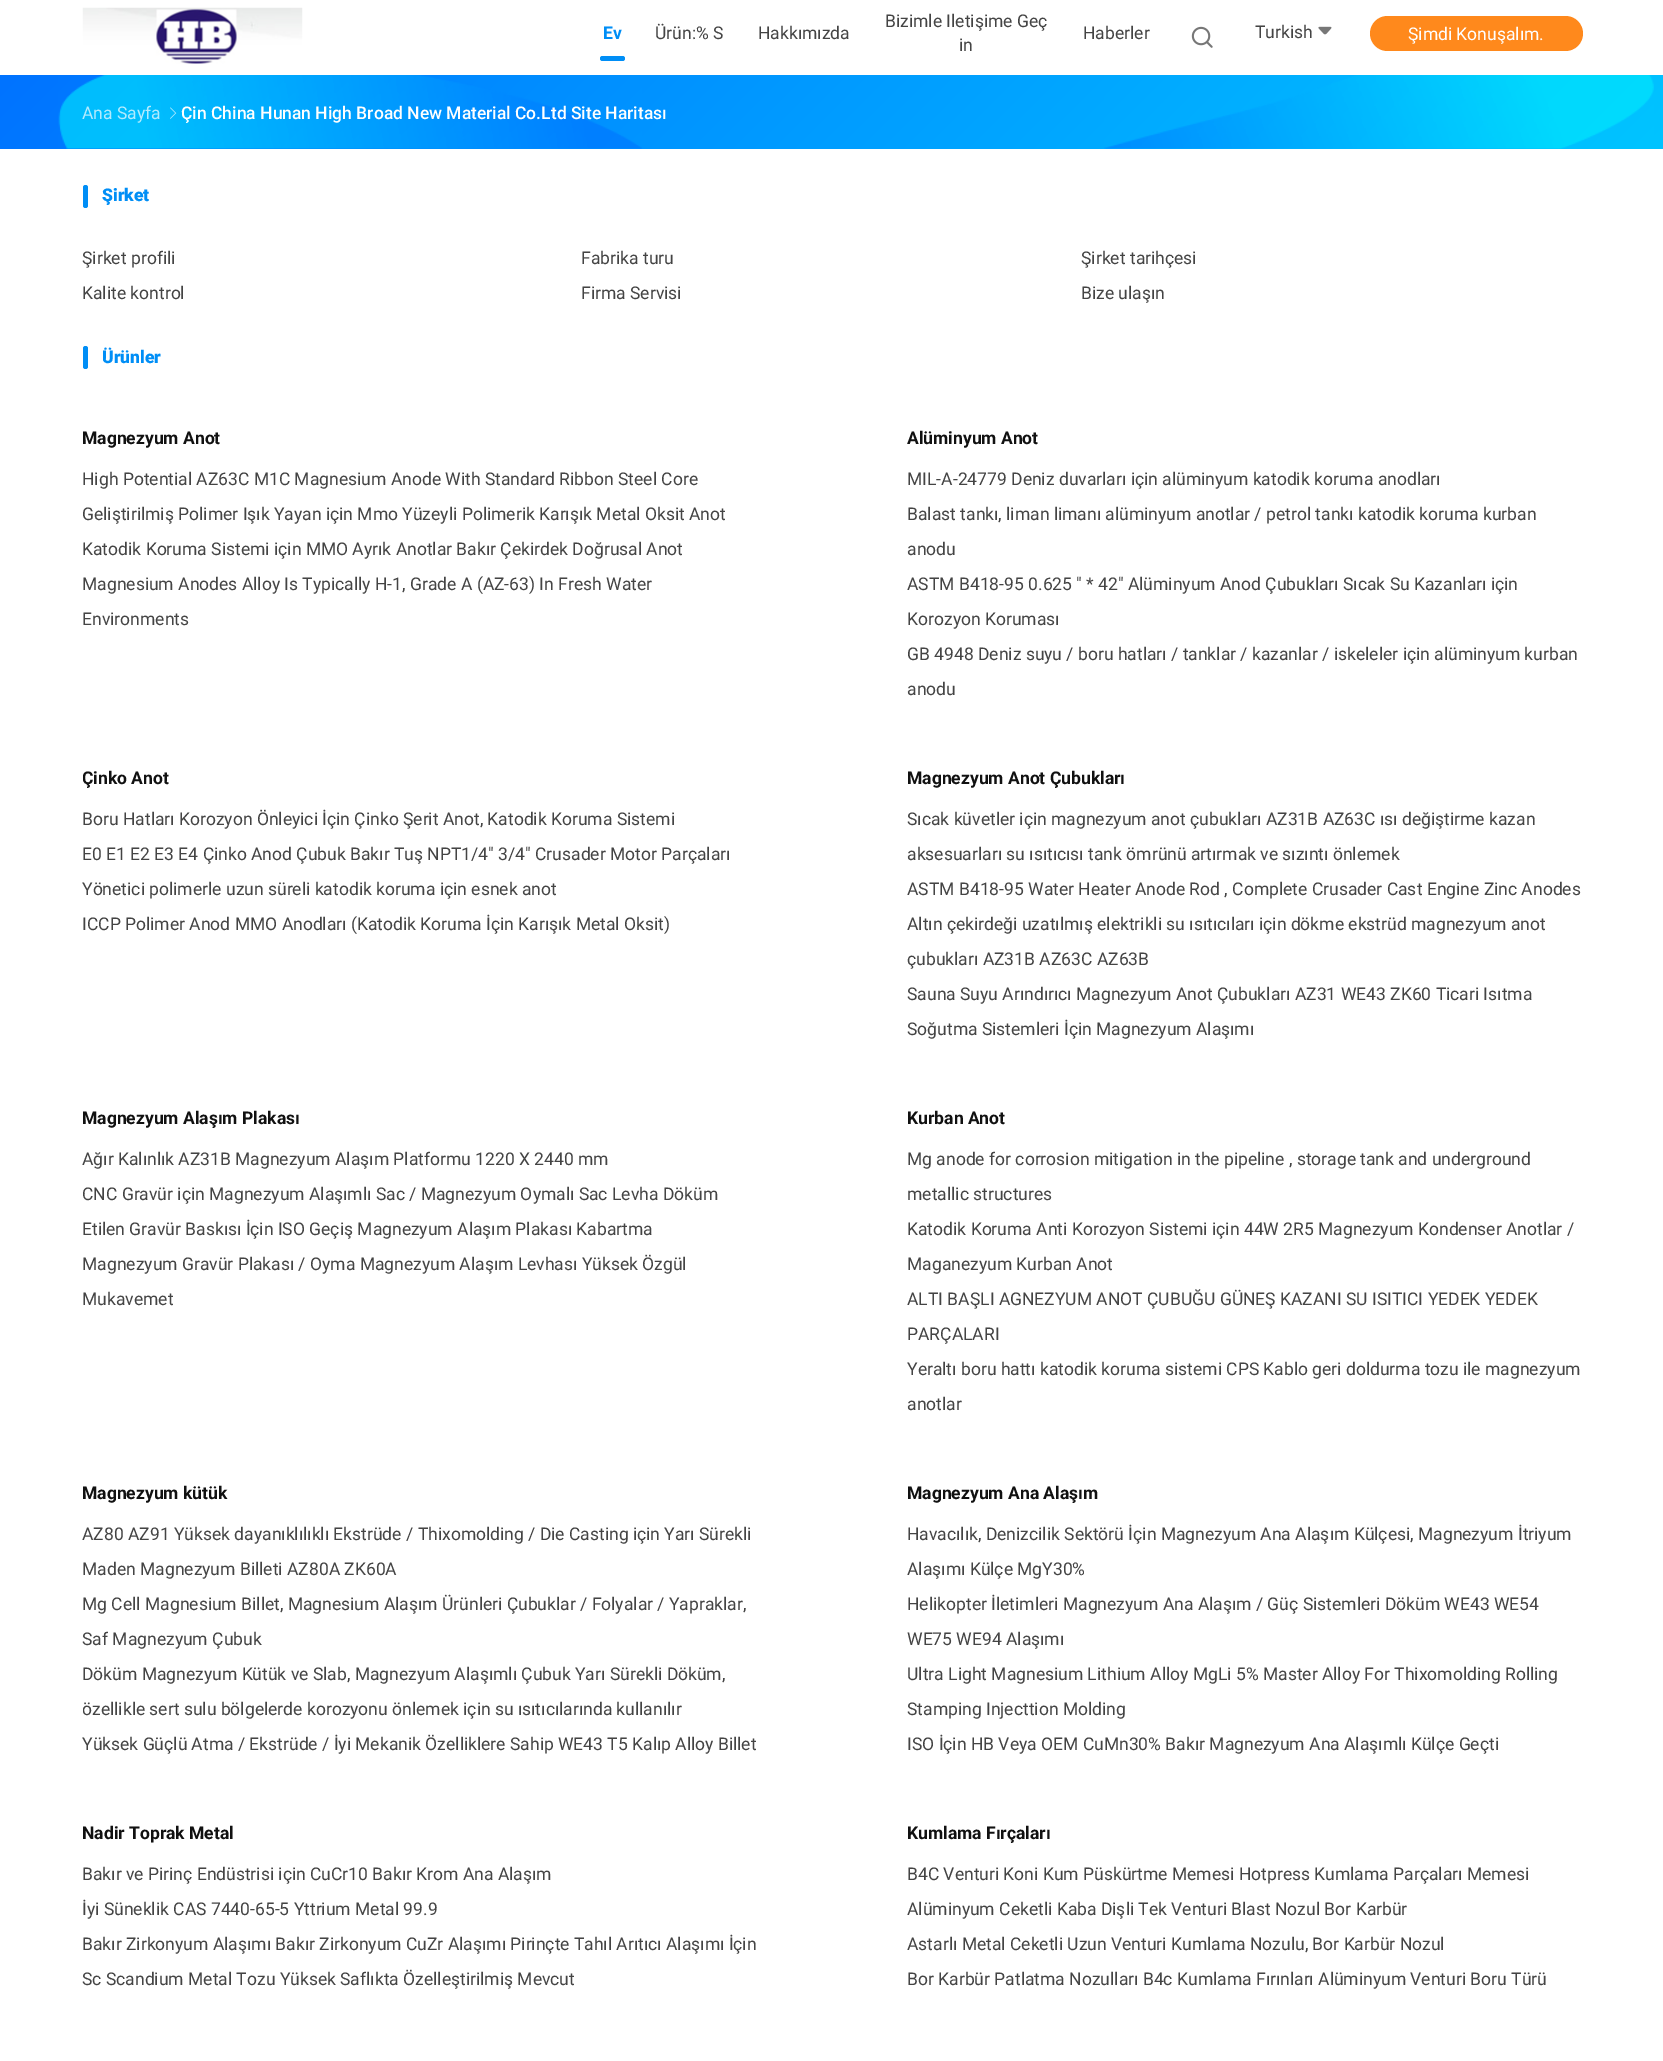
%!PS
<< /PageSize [1663 2061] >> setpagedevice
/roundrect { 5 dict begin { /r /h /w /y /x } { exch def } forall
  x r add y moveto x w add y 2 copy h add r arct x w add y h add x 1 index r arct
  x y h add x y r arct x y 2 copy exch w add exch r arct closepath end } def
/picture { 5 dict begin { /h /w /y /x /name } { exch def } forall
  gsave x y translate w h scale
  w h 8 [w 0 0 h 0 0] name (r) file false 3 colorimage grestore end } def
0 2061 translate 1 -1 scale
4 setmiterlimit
1 setgray
0 0 1663 2061 rectfill
(img1.rgb) 82 7 221 57 picture
/Roboto-Bold [17.5 0 0 -17.5 0 0] selectfont
0 0.557 0.965 setrgbcolor
603 39 moveto (Ev) show
600 56 25 5 2.5 roundrect fill
/Roboto-Regular [17.5 0 0 -17.5 0 0] selectfont
0.267 setgray
655 39 moveto (Ürün:% S) show
758 39 moveto (Hakkımızda) show
885 27 moveto (Bizimle Iletişime Geç) show
959 51 moveto (in) show
1083 39 moveto (Haberler) show
(img2.rgb) 1191 26 22 22 picture
1255 38 moveto (Turkish) show
(img3.rgb) 1318 26 14 9 picture
1 0.537 0.11 setrgbcolor
1370 16 213 35 17.5 roundrect fill
1 setgray
1408 40 moveto (Şimdi Konuşalım.) show
gsave newpath 0 75 moveto 1663 75 lineto 1663 149 lineto 0 149 lineto closepath clip newpath
<< /ShadingType 2 /ColorSpace /DeviceRGB /Coords [397 -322 1266 546] /Extend [true true] /Function << /FunctionType 2 /Domain [0 1] /C0 [0 0.451 1] /C1 [0 0.769 1] /N 1 >> >> shfill grestore
(img4.rgb) 58 75 584 74 picture
(img5.rgb) 1104 75 550 74 picture
0.702 0.922 0.996 setrgbcolor
82 119 moveto (Ana Sayfa) show
(img6.rgb) 170 107 7 12 picture
/Roboto-Medium [17.5 0 0 -17.5 0 0] selectfont
1 setgray
181 119 moveto (Çin China Hunan High Broad New Material Co.Ltd Site Haritası) show
0 0.557 0.965 setrgbcolor
83 185 5 23 2.5 roundrect fill
/Roboto-Black [17.5 0 0 -17.5 0 0] selectfont
102 201 moveto (Şirket) show
/Roboto-Regular [17.5 0 0 -17.5 0 0] selectfont
0.267 setgray
82 264 moveto (Şirket profili) show
581 264 moveto (Fabrika turu) show
1081 264 moveto (Şirket tarihçesi) show
82 299 moveto (Kalite kontrol) show
581 299 moveto (Firma Servisi) show
1081 299 moveto (Bize ulaşın) show
0 0.557 0.965 setrgbcolor
83 346 5 23 2.5 roundrect fill
/Roboto-Black [17.5 0 0 -17.5 0 0] selectfont
102 363 moveto (Ürünler) show
/Roboto-Bold [17.5 0 0 -17.5 0 0] selectfont
0.067 setgray
82 444 moveto (Magnezyum Anot) show
/Roboto-Regular [17.5 0 0 -17.5 0 0] selectfont
0.267 setgray
82 485 moveto (High Potential AZ63C M1C Magnesium Anode With Standard Ribbon Steel Core) show
82 520 moveto (Geliştirilmiş Polimer Işık Yayan için Mmo Yüzeyli Polimerik Karışık Metal Oksit Anot) show
82 555 moveto (Katodik Koruma Sistemi için MMO Ayrık Anotlar Bakır Çekirdek Doğrusal Anot) show
82 590 moveto (Magnesium Anodes Alloy Is Typically H-1, Grade A \(AZ-63\) In Fresh Water) show
82 625 moveto (Environments) show
/Roboto-Bold [17.5 0 0 -17.5 0 0] selectfont
0.067 setgray
907 444 moveto (Alüminyum Anot) show
/Roboto-Regular [17.5 0 0 -17.5 0 0] selectfont
0.267 setgray
907 485 moveto (MIL-A-24779 Deniz duvarları için alüminyum katodik koruma anodları) show
907 520 moveto (Balast tankı, liman limanı alüminyum anotlar / petrol tankı katodik koruma kurban) show
907 555 moveto (anodu) show
907 590 moveto (ASTM B418-95 0.625 " * 42" Alüminyum Anod Çubukları Sıcak Su Kazanları için) show
907 625 moveto (Korozyon Koruması) show
907 660 moveto (GB 4948 Deniz suyu / boru hatları / tanklar / kazanlar / iskeleler için alüminyum kurban) show
907 695 moveto (anodu) show
gsave
83 401 1500 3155 rectclip
/Roboto-Bold [17.5 0 0 -17.5 0 0] selectfont
0.067 setgray
82 784 moveto (Çinko Anot) show
grestore
82 825 moveto (Boru Hatları Korozyon Önleyici İçin Çinko Şerit Anot, Katodik Koruma Sistemi) show
82 860 moveto (E0 E1 E2 E3 E4 Çinko Anod Çubuk Bakır Tuş NPT1/4" 3/4" Crusader Motor Parçaları) show
82 895 moveto (Yönetici polimerle uzun süreli katodik koruma için esnek anot) show
82 930 moveto (ICCP Polimer Anod MMO Anodları \(Katodik Koruma İçin Karışık Metal Oksit\)) show
/Roboto-Bold [17.5 0 0 -17.5 0 0] selectfont
0.067 setgray
907 784 moveto (Magnezyum Anot Çubukları) show
/Roboto-Regular [17.5 0 0 -17.5 0 0] selectfont
0.267 setgray
907 825 moveto (Sıcak küvetler için magnezyum anot çubukları AZ31B AZ63C ısı değiştirme kazan) show
907 860 moveto (aksesuarları su ısıtıcısı tank ömrünü artırmak ve sızıntı önlemek) show
907 895 moveto (ASTM B418-95 Water Heater Anode Rod , Complete Crusader Cast Engine Zinc Anodes) show
907 930 moveto (Altın çekirdeği uzatılmış elektrikli su ısıtıcıları için dökme ekstrüd magnezyum anot) show
907 965 moveto (çubukları AZ31B AZ63C AZ63B) show
907 1000 moveto (Sauna Suyu Arındırıcı Magnezyum Anot Çubukları AZ31 WE43 ZK60 Ticari Isıtma) show
907 1035 moveto (Soğutma Sistemleri İçin Magnezyum Alaşımı) show
/Roboto-Bold [17.5 0 0 -17.5 0 0] selectfont
0.067 setgray
82 1124 moveto (Magnezyum Alaşım Plakası) show
/Roboto-Regular [17.5 0 0 -17.5 0 0] selectfont
0.267 setgray
82 1165 moveto (Ağır Kalınlık AZ31B Magnezyum Alaşım Platformu 1220 X 2440 mm) show
82 1200 moveto (CNC Gravür için Magnezyum Alaşımlı Sac / Magnezyum Oymalı Sac Levha Döküm) show
82 1235 moveto (Etilen Gravür Baskısı İçin ISO Geçiş Magnezyum Alaşım Plakası Kabartma) show
82 1270 moveto (Magnezyum Gravür Plakası / Oyma Magnezyum Alaşım Levhası Yüksek Özgül) show
82 1305 moveto (Mukavemet) show
/Roboto-Bold [17.5 0 0 -17.5 0 0] selectfont
0.067 setgray
907 1124 moveto (Kurban Anot) show
/Roboto-Regular [17.5 0 0 -17.5 0 0] selectfont
0.267 setgray
907 1165 moveto (Mg anode for corrosion mitigation in the pipeline , storage tank and underground) show
907 1200 moveto (metallic structures) show
907 1235 moveto (Katodik Koruma Anti Korozyon Sistemi için 44W 2R5 Magnezyum Kondenser Anotlar /) show
907 1270 moveto (Maganezyum Kurban Anot) show
907 1305 moveto (ALTI BAŞLI AGNEZYUM ANOT ÇUBUĞU GÜNEŞ KAZANI SU ISITICI YEDEK YEDEK) show
907 1340 moveto (PARÇALARI) show
907 1375 moveto (Yeraltı boru hattı katodik koruma sistemi CPS Kablo geri doldurma tozu ile magnezyum) show
907 1410 moveto (anotlar) show
/Roboto-Bold [17.5 0 0 -17.5 0 0] selectfont
0.067 setgray
82 1499 moveto (Magnezyum kütük) show
/Roboto-Regular [17.5 0 0 -17.5 0 0] selectfont
0.267 setgray
82 1540 moveto (AZ80 AZ91 Yüksek dayanıklılıklı Ekstrüde / Thixomolding / Die Casting için Yarı Sürekli) show
82 1575 moveto (Maden Magnezyum Billeti AZ80A ZK60A) show
82 1610 moveto (Mg Cell Magnesium Billet, Magnesium Alaşım Ürünleri Çubuklar / Folyalar / Yapraklar,) show
82 1645 moveto (Saf Magnezyum Çubuk) show
82 1680 moveto (Döküm Magnezyum Kütük ve Slab, Magnezyum Alaşımlı Çubuk Yarı Sürekli Döküm,) show
gsave
83 401 1500 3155 rectclip
82 1715 moveto (özellikle sert sulu bölgelerde korozyonu önlemek için su ısıtıcılarında kullanılır) show
grestore
82 1750 moveto (Yüksek Güçlü Atma / Ekstrüde / İyi Mekanik Özelliklere Sahip WE43 T5 Kalıp Alloy Billet) show
/Roboto-Bold [17.5 0 0 -17.5 0 0] selectfont
0.067 setgray
907 1499 moveto (Magnezyum Ana Alaşım) show
/Roboto-Regular [17.5 0 0 -17.5 0 0] selectfont
0.267 setgray
907 1540 moveto (Havacılık, Denizcilik Sektörü İçin Magnezyum Ana Alaşım Külçesi, Magnezyum İtriyum) show
907 1575 moveto (Alaşımı Külçe MgY30%) show
907 1610 moveto (Helikopter İletimleri Magnezyum Ana Alaşım / Güç Sistemleri Döküm WE43 WE54) show
907 1645 moveto (WE75 WE94 Alaşımı) show
907 1680 moveto (Ultra Light Magnesium Lithium Alloy MgLi 5% Master Alloy For Thixomolding Rolling) show
907 1715 moveto (Stamping Injecttion Molding) show
907 1750 moveto (ISO İçin HB Veya OEM CuMn30% Bakır Magnezyum Ana Alaşımlı Külçe Geçti) show
/Roboto-Bold [17.5 0 0 -17.5 0 0] selectfont
0.067 setgray
82 1839 moveto (Nadir Toprak Metal) show
/Roboto-Regular [17.5 0 0 -17.5 0 0] selectfont
0.267 setgray
82 1880 moveto (Bakır ve Pirinç Endüstrisi için CuCr10 Bakır Krom Ana Alaşım) show
82 1915 moveto (İyi Süneklik CAS 7440-65-5 Yttrium Metal 99.9) show
82 1950 moveto (Bakır Zirkonyum Alaşımı Bakır Zirkonyum CuZr Alaşımı Pirinçte Tahıl Arıtıcı Alaşımı İçin) show
82 1985 moveto (Sc Scandium Metal Tozu Yüksek Saflıkta Özelleştirilmiş Mevcut) show
/Roboto-Bold [17.5 0 0 -17.5 0 0] selectfont
0.067 setgray
907 1839 moveto (Kumlama Fırçaları) show
/Roboto-Regular [17.5 0 0 -17.5 0 0] selectfont
0.267 setgray
907 1880 moveto (B4C Venturi Koni Kum Püskürtme Memesi Hotpress Kumlama Parçaları Memesi) show
907 1915 moveto (Alüminyum Ceketli Kaba Dişli Tek Venturi Blast Nozul Bor Karbür) show
907 1950 moveto (Astarlı Metal Ceketli Uzun Venturi Kumlama Nozulu, Bor Karbür Nozul) show
907 1985 moveto (Bor Karbür Patlatma Nozulları B4c Kumlama Fırınları Alüminyum Venturi Boru Türü) show
showpage
